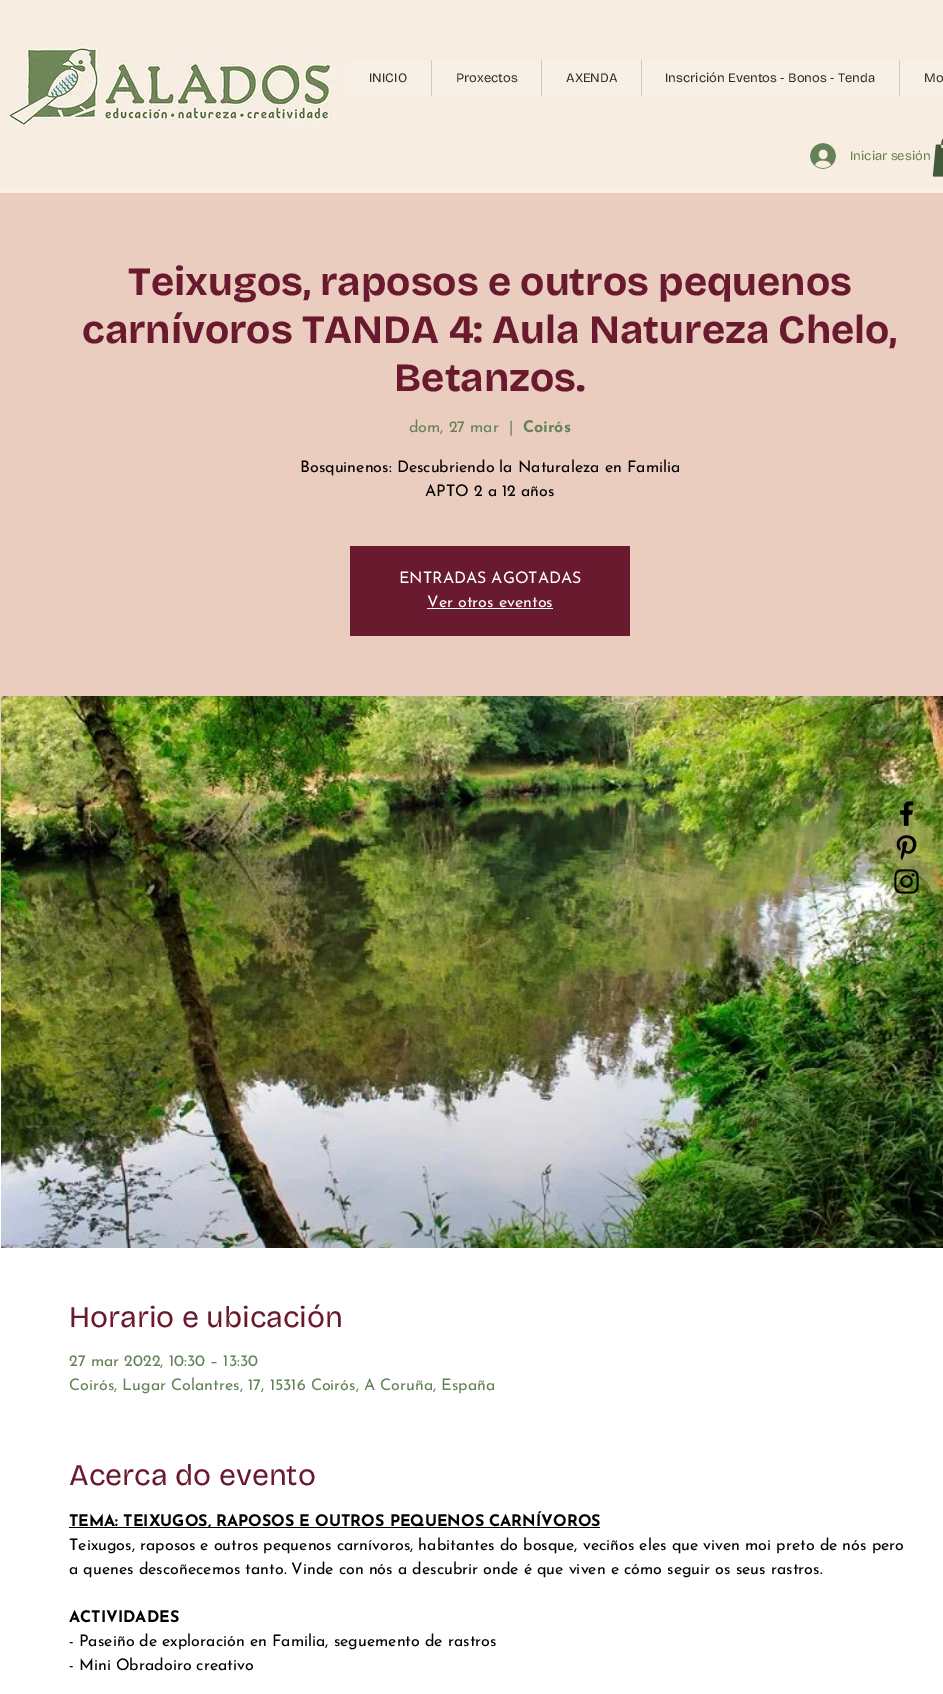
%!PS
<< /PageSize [943 1694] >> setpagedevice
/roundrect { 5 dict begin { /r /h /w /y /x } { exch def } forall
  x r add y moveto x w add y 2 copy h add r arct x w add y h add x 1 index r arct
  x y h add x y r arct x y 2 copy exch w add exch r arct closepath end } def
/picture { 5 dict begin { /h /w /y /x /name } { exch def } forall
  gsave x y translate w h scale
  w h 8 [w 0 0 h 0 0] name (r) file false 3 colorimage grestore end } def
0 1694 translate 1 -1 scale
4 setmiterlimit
0.969 0.941 0.902 setrgbcolor
0 0 943 1694 rectfill
0.973 0.929 0.882 setrgbcolor
0 0 943 188 rectfill
(img1.rgb) 8 43 332 88 picture
0.969 0.941 0.902 setrgbcolor
345 60 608 36 10 roundrect fill
/BricolageGrotesque-Regular [13 0 0 -13 0 0] selectfont
0.184 0.18 0.18 setrgbcolor
369 82 moveto (INICIO) show
0.859 0.788 0.678 setrgbcolor
431 60 1 36 rectfill
0.184 0.18 0.18 setrgbcolor
456 82 moveto (Proxectos) show
0.859 0.788 0.678 setrgbcolor
541 60 1 36 rectfill
0.184 0.18 0.18 setrgbcolor
566 82 moveto (AXENDA) show
0.859 0.788 0.678 setrgbcolor
641 60 1 36 rectfill
0.184 0.18 0.18 setrgbcolor
665 82 moveto (Inscrición Eventos - Bonos - Tenda) show
0.859 0.788 0.678 setrgbcolor
899 60 1 36 rectfill
0.184 0.18 0.18 setrgbcolor
924 82 moveto (Mo) show
(img2.rgb) 810 143 26 26 picture
0.388 0.51 0.337 setrgbcolor
850 160 moveto (Iniciar sesión) show
(img3.rgb) 932 138 11 39 picture
0.918 0.804 0.745 setrgbcolor
0 193 943 779 rectfill
/BricolageGrotesque-Bold [40 0 0 -40 0 0] selectfont
0.416 0.102 0.184 setrgbcolor
128 295 moveto (Teixugos, raposos e outros pequenos) show
82 343 moveto (carnívoros TANDA 4: Aula Natureza Chelo,) show
394 391 moveto (Betanzos.) show
/JosefinSans-Regular [16 0 0 -16 0 0] selectfont
0.388 0.51 0.337 setrgbcolor
409 432 moveto (dom, 27 mar) show
509 432 moveto (|) show
/JosefinSans-Bold [16 0 0 -16 0 0] selectfont
523 432 moveto (Coirós) show
/JosefinSans-Regular [16 0 0 -16 0 0] selectfont
0 setgray
300 472 moveto (Bosquinenos: Descubriendo la Naturaleza en Familia) show
425 496 moveto (APTO 2 a 12 años) show
0.416 0.102 0.184 setrgbcolor
350 546 280 90 rectfill
1 setgray
399 583 moveto (ENTRADAS AGOTADAS) show
427 607 moveto (Ver otros eventos) show
427 608 126 1 rectfill
0 972 943 722 rectfill
(img4.rgb) 1 696 942 552 picture
/BricolageGrotesque-Regular [30 0 0 -30 0 0] selectfont
0.416 0.102 0.184 setrgbcolor
69 1327 moveto (Horario e ubicación) show
/JosefinSans-Regular [16 0 0 -16 0 0] selectfont
0.388 0.51 0.337 setrgbcolor
69 1366 moveto (27 mar 2022, 10:30 – 13:30) show
69 1390 moveto (Coirós, Lugar Colantres, 17, 15316 Coirós, A Coruña, España) show
/BricolageGrotesque-Regular [30 0 0 -30 0 0] selectfont
0.416 0.102 0.184 setrgbcolor
69 1485 moveto (Acerca do evento) show
0 setgray
69 1527 531 1 rectfill
/JosefinSans-Bold [16 0 0 -16 0 0] selectfont
69 1526 moveto (TEMA: TEIXUGOS, RAPOSOS E OUTROS PEQUENOS CARNÍVOROS) show
/JosefinSans-Regular [16 0 0 -16 0 0] selectfont
69 1550 moveto (Teixugos, raposos e outros pequenos carnívoros, habitantes do bosque, veciños eles que viven moi preto de nós pero) show
69 1574 moveto (a quenes descoñecemos tanto. Vinde con nós a descubrir onde é que viven e cómo seguir os seus rastros.) show
/JosefinSans-Bold [16 0 0 -16 0 0] selectfont
69 1622 moveto (ACTIVIDADES) show
/JosefinSans-Regular [16 0 0 -16 0 0] selectfont
69 1646 moveto (- Paseiño de exploración en Familia, seguemento de rastros) show
69 1670 moveto (- Mini Obradoiro creativo) show
(img5.rgb) 899 801 15 26 picture
(img6.rgb) 896 835 21 25 picture
(img7.rgb) 894 869 25 25 picture
showpage
